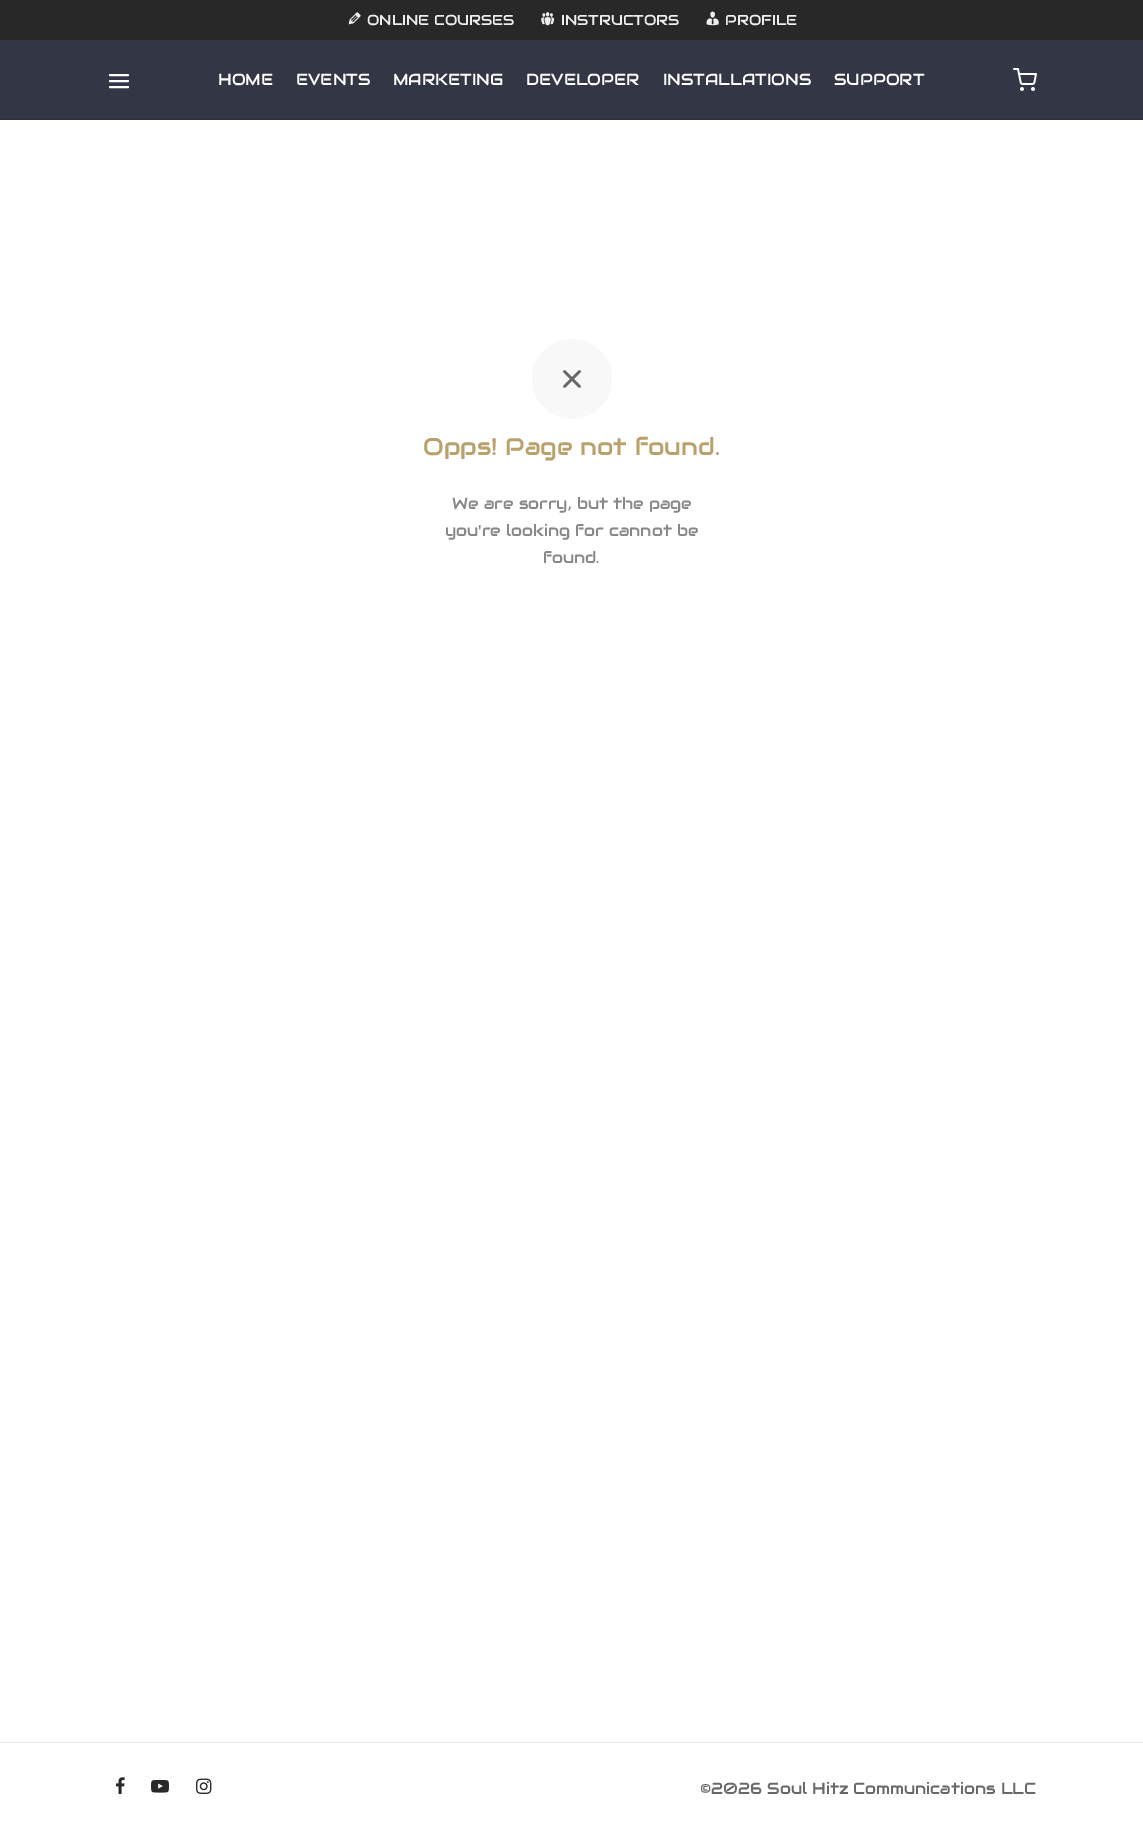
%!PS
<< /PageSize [1143 1824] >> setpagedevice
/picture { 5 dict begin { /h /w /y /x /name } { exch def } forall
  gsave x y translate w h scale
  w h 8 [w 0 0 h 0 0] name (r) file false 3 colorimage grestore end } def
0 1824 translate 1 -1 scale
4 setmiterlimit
1 setgray
0 0 1143 1824 rectfill
0.157 setgray
0 0 1143 40 rectfill
(img1.rgb) 348 12 13 13 picture
/Audiowide-Regular [14.4 0 0 -14.4 0 0] selectfont
0.933 setgray
367 25 moveto (ONLINE COURSES) show
(img2.rgb) 541 12 14 14 picture
561 25 moveto (INSTRUCTORS) show
(img3.rgb) 706 11 13 15 picture
725 25 moveto (PROFILE) show
0.2 0.212 0.271 setrgbcolor
0 40 1143 79 rectfill
1 setgray
2 setlinewidth
1 setlinecap
1 setlinejoin
newpath 110 81 moveto 128 81 lineto 110 75 moveto 128 75 lineto 110 87 moveto 128 87 lineto stroke
/Audiowide-Regular [16 0 0 -16 0 0] selectfont
218 85 moveto (HOME) show
296 85 moveto (EVENTS) show
393 85 moveto (MARKETING) show
526 85 moveto (DEVELOPER) show
663 85 moveto (INSTALLATIONS) show
834 85 moveto (SUPPORT) show
(img4.rgb) 1013 68 24 23 picture
0.18 0.192 0.243 setrgbcolor
0 119 1143 1 rectfill
0.973 setgray
newpath 572 379 40 0 360 arc closepath fill
0.408 setgray
2.5 setlinewidth
newpath 579.5 371.5 moveto 564.5 386.5 lineto 564.5 371.5 moveto 579.5 386.5 lineto stroke
/Audiowide-Regular [24 0 0 -24 0 0] selectfont
0.725 0.631 0.42 setrgbcolor
423 455 moveto (Opps! Page not found.) show
/Audiowide-Regular [16 0 0 -16 0 0] selectfont
0.533 setgray
452 509 moveto (We are sorry, but the page) show
445 536 moveto (you're looking for cannot be) show
543 563 moveto (found.) show
0.902 setgray
0 1742 1143 1 rectfill
(img5.rgb) 115 1777 10 17 picture
(img6.rgb) 151 1779 18 14 picture
(img7.rgb) 196 1778 16 16 picture
0.408 setgray
700 1794 moveto (©2026 Soul Hitz Communications LLC) show
showpage
